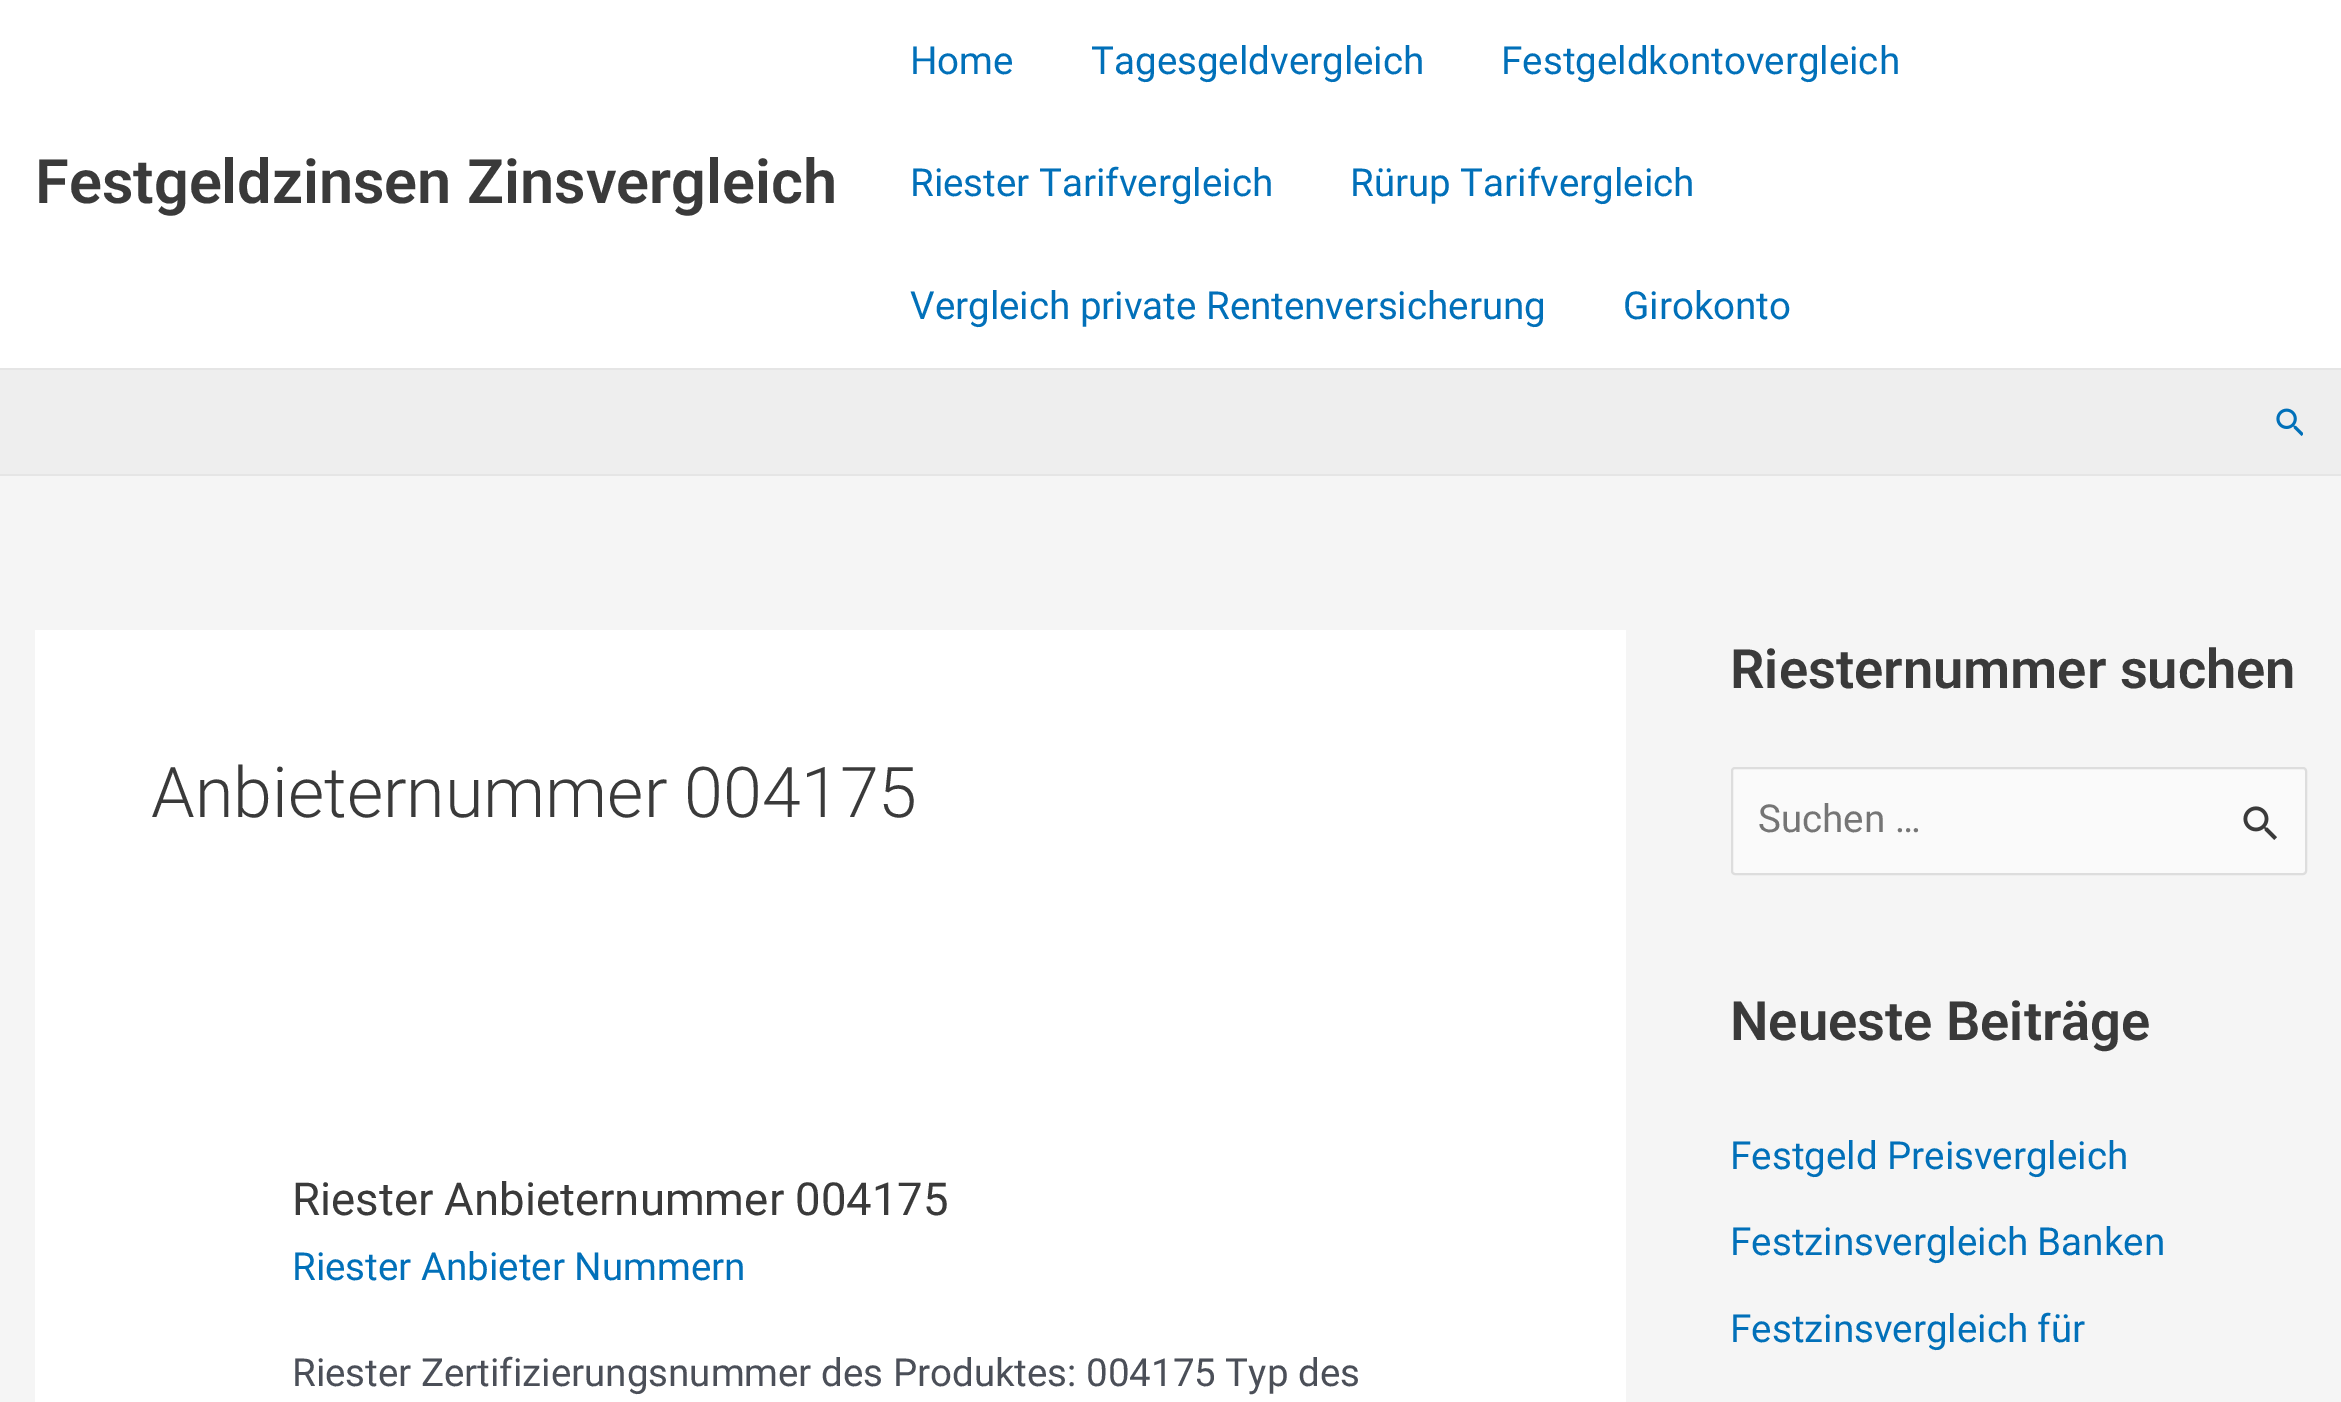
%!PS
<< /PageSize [2341 1402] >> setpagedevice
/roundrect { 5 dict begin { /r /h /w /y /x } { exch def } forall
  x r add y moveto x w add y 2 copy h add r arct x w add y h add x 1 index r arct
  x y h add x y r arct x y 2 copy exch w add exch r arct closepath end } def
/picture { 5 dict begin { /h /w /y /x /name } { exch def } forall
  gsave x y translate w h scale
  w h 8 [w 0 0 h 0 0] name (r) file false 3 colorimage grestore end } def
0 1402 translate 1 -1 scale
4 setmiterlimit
0.961 setgray
0 0 2341 1402 rectfill
1 setgray
0 0 2341 368 rectfill
0.898 setgray
0 368 2341 2 rectfill
/Roboto-SemiBold [61.25 0 0 -61.25 0 0] selectfont
0.227 setgray
35 203 moveto (Festgeldzinsen Zinsvergleich) show
/Roboto-Regular [38.5 0 0 -38.5 0 0] selectfont
0.004 0.439 0.725 setrgbcolor
910 74 moveto (Home) show
1091 74 moveto (Tagesgeldvergleich) show
1501 74 moveto (Festgeldkontovergleich) show
910 196 moveto (Riester Tarifvergleich) show
1350 196 moveto (Rürup Tarifvergleich) show
910 319 moveto (Vergleich private Rentenversicherung) show
1623 319 moveto (Girokonto) show
0.933 setgray
0 370 2341 104 rectfill
0.898 setgray
0 474 2341 2 rectfill
(img1.rgb) 2276 408 27 28 picture
1 setgray
35 630 1591 772 rectfill
/Roboto-Light [70 0 0 -70 0 0] selectfont
0.227 setgray
151 817 moveto (Anbieternummer 004175) show
/Roboto-Regular [45.5 0 0 -45.5 0 0] selectfont
292 1215 moveto (Riester Anbieternummer 004175) show
/Roboto-Regular [38.5 0 0 -38.5 0 0] selectfont
0.004 0.439 0.725 setrgbcolor
292 1280 moveto (Riester Anbieter Nummern) show
0.294 0.31 0.345 setrgbcolor
292 1386 moveto (Riester Zertifizierungsnummer des Produktes: 004175 Typ des) show
/Roboto-SemiBold [54.25 0 0 -54.25 0 0] selectfont
0.227 setgray
1730 688 moveto (Riesternummer suchen) show
0.98 setgray
1732 768 574 106 3 roundrect gsave fill grestore
0.867 setgray
2 setlinewidth
stroke
/Roboto-Regular [38.5 0 0 -38.5 0 0] selectfont
0.459 setgray
1758 832 moveto (Suchen …) show
(img2.rgb) 2243 806 34 34 picture
/Roboto-SemiBold [54.25 0 0 -54.25 0 0] selectfont
0.227 setgray
1730 1040 moveto (Neueste Beiträge) show
/Roboto-Regular [38.5 0 0 -38.5 0 0] selectfont
0.004 0.439 0.725 setrgbcolor
1730 1169 moveto (Festgeld Preisvergleich) show
1730 1255 moveto (Festzinsvergleich Banken) show
1730 1342 moveto (Festzinsvergleich für) show
showpage
